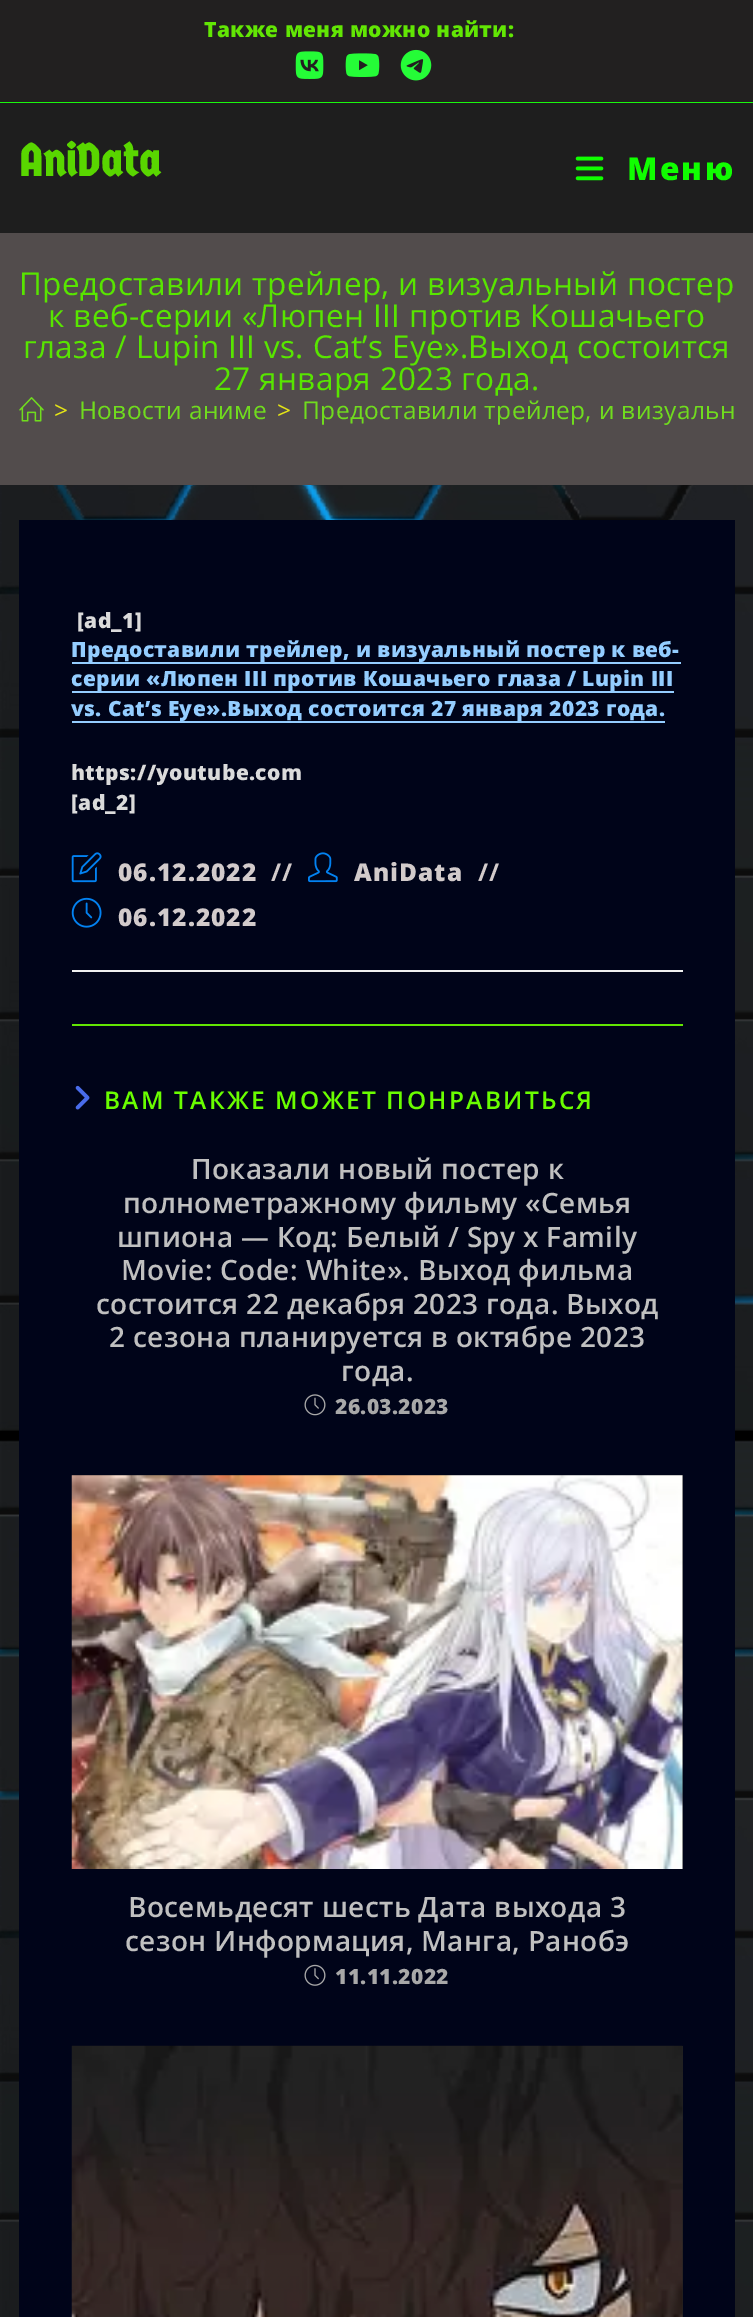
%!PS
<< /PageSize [753 2317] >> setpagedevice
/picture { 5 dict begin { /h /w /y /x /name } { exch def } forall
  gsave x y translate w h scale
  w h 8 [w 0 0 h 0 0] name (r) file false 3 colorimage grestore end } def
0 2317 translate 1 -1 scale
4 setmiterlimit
1 setgray
0 0 753 2317 rectfill
(img1.rgb) 0 485 753 1832 picture
0.133 0.125 0.125 setrgbcolor
0 0 753 102 rectfill
0.102 0.969 0.055 setrgbcolor
0 102 753 1 rectfill
/OpenSans-ExtraBold [21 0 0 -21 0 0] selectfont
0.384 0.902 0.016 setrgbcolor
204 37 moveto 0.35 0 (Также меня можно найти:) ashow
(img2.rgb) 295 51 29 28 picture
(img3.rgb) 345 53 35 24 picture
(img4.rgb) 400 49 32 32 picture
0.118 setgray
0 103 753 130 rectfill
/GermaniaOne-Bold [45.5 0 0 -45.5 0 0] selectfont
0.349 0.839 0 setrgbcolor
19 176 moveto 0.35 0 (AniData) ashow
(img5.rgb) 575 156 29 25 picture
/OpenSans-ExtraBold [31.5 0 0 -31.5 0 0] selectfont
0.063 1 0 setrgbcolor
627 180 moveto 2.25 0 (Меню) ashow
0.322 0.298 0.298 setrgbcolor
0 233 753 252 rectfill
/OpenSans-Regular [31.5 0 0 -31.5 0 0] selectfont
0.345 0.898 0 setrgbcolor
19 295 moveto 0.35 0 (Предоставили трейлер, и визуальный постер) ashow
48 327 moveto 0.35 0 (к веб-серии «Люпен III против Кошачьего) ashow
23 358 moveto 0.35 0 (глаза / Lupin III vs. Cat’s Eye».Выход состоится) ashow
214 390 moveto 0.35 0 (27 января 2023 года.) ashow
(img6.rgb) 19 397 25 25 picture
/OpenSans-Regular [24.5 0 0 -24.5 0 0] selectfont
0.898 0.898 0.086 setrgbcolor
54 419 moveto 0.35 0 (>) ashow
0.439 0.863 0.118 setrgbcolor
79 419 moveto 0.35 0 (Новости аниме) ashow
0.898 0.898 0.086 setrgbcolor
277 419 moveto 0.35 0 (>) ashow
0.439 0.863 0.118 setrgbcolor
302 419 moveto 0.35 0 (Предоставили трейлер, и визуальн) ashow
0 0.016 0.098 setrgbcolor
19 520 716 1797 rectfill
/OpenSans-ExtraBold [21 0 0 -21 0 0] selectfont
0.859 setgray
77 628 moveto 0.35 0 ([ad_1]) ashow
0.58 0.804 1 setrgbcolor
72 662 609 2 rectfill
71 657 moveto 0.35 0 (Предоставили трейлер, и визуальный постер к веб-) ashow
72 691 602 2 rectfill
71 686 moveto 0.35 0 (серии «Люпен III против Кошачьего глаза / Lupin III) ashow
72 721 593 2 rectfill
71 716 moveto 0.35 0 (vs. Cat’s Eye».Выход состоится 27 января 2023 года.) ashow
0.859 setgray
71 780 moveto 0.35 0 (https://youtube.com) ashow
71 810 moveto 0.35 0 ([ad_2]) ashow
0.945 setgray
72 970 611 2 rectfill
(img7.rgb) 71 852 31 31 picture
/OpenSans-ExtraBold [24.5 0 0 -24.5 0 0] selectfont
0.824 0.796 0.796 setrgbcolor
118 881 moveto 1 0 (06.12.2022) ashow
/OpenSans-Bold [24.5 0 0 -24.5 0 0] selectfont
271 881 moveto 1 0 (//) ashow
(img8.rgb) 308 852 30 31 picture
/OpenSans-ExtraBold [24.5 0 0 -24.5 0 0] selectfont
354 881 moveto 1 0 (AniData) ashow
/OpenSans-Bold [24.5 0 0 -24.5 0 0] selectfont
478 881 moveto 1 0 (//) ashow
(img9.rgb) 71 897 31 31 picture
/OpenSans-ExtraBold [24.5 0 0 -24.5 0 0] selectfont
118 926 moveto 1 0 (06.12.2022) ashow
0.384 0.902 0.012 setrgbcolor
72 1024 611 2 rectfill
(img10.rgb) 75 1085 15 25 picture
/OpenSans-SemiBold [24.5 0 0 -24.5 0 0] selectfont
0.416 0.996 0 setrgbcolor
104 1109 moveto 2.25 0 (ВАМ ТАКЖЕ МОЖЕТ ПОНРАВИТЬСЯ) ashow
/OpenSans-SemiBold [28 0 0 -28 0 0] selectfont
0.753 setgray
191 1179 moveto 0.35 0 (Показали новый постер к) ashow
123 1213 moveto 0.35 0 (полнометражному фильму «Семья) ashow
117 1247 moveto 0.35 0 (шпиона — Код: Белый / Spy x Family) ashow
121 1280 moveto 0.35 0 (Movie: Code: White». Выход фильма) ashow
96 1314 moveto 0.35 0 (состоится 22 декабря 2023 года. Выход) ashow
109 1347 moveto 0.35 0 (2 сезона планируется в октябре 2023) ashow
341 1381 moveto 0.35 0 (года.) ashow
(img11.rgb) 304 1394 22 22 picture
/OpenSans-ExtraBold [21 0 0 -21 0 0] selectfont
0.659 setgray
335 1414 moveto 0.35 0 (26.03.2023) ashow
0.133 setgray
72 1475 611 394 rectfill
(img12.rgb) 71 1475 612 394 picture
/OpenSans-SemiBold [28 0 0 -28 0 0] selectfont
0.753 setgray
128 1917 moveto 0.35 0 (Восемьдесят шесть Дата выхода 3) ashow
125 1951 moveto 0.35 0 (сезон Информация, Манга, Ранобэ) ashow
(img13.rgb) 304 1964 22 22 picture
/OpenSans-ExtraBold [21 0 0 -21 0 0] selectfont
0.659 setgray
335 1984 moveto 0.35 0 (11.11.2022) ashow
0.133 setgray
682 2046 1 271 rectfill
(img14.rgb) 71 2045 612 272 picture
showpage
